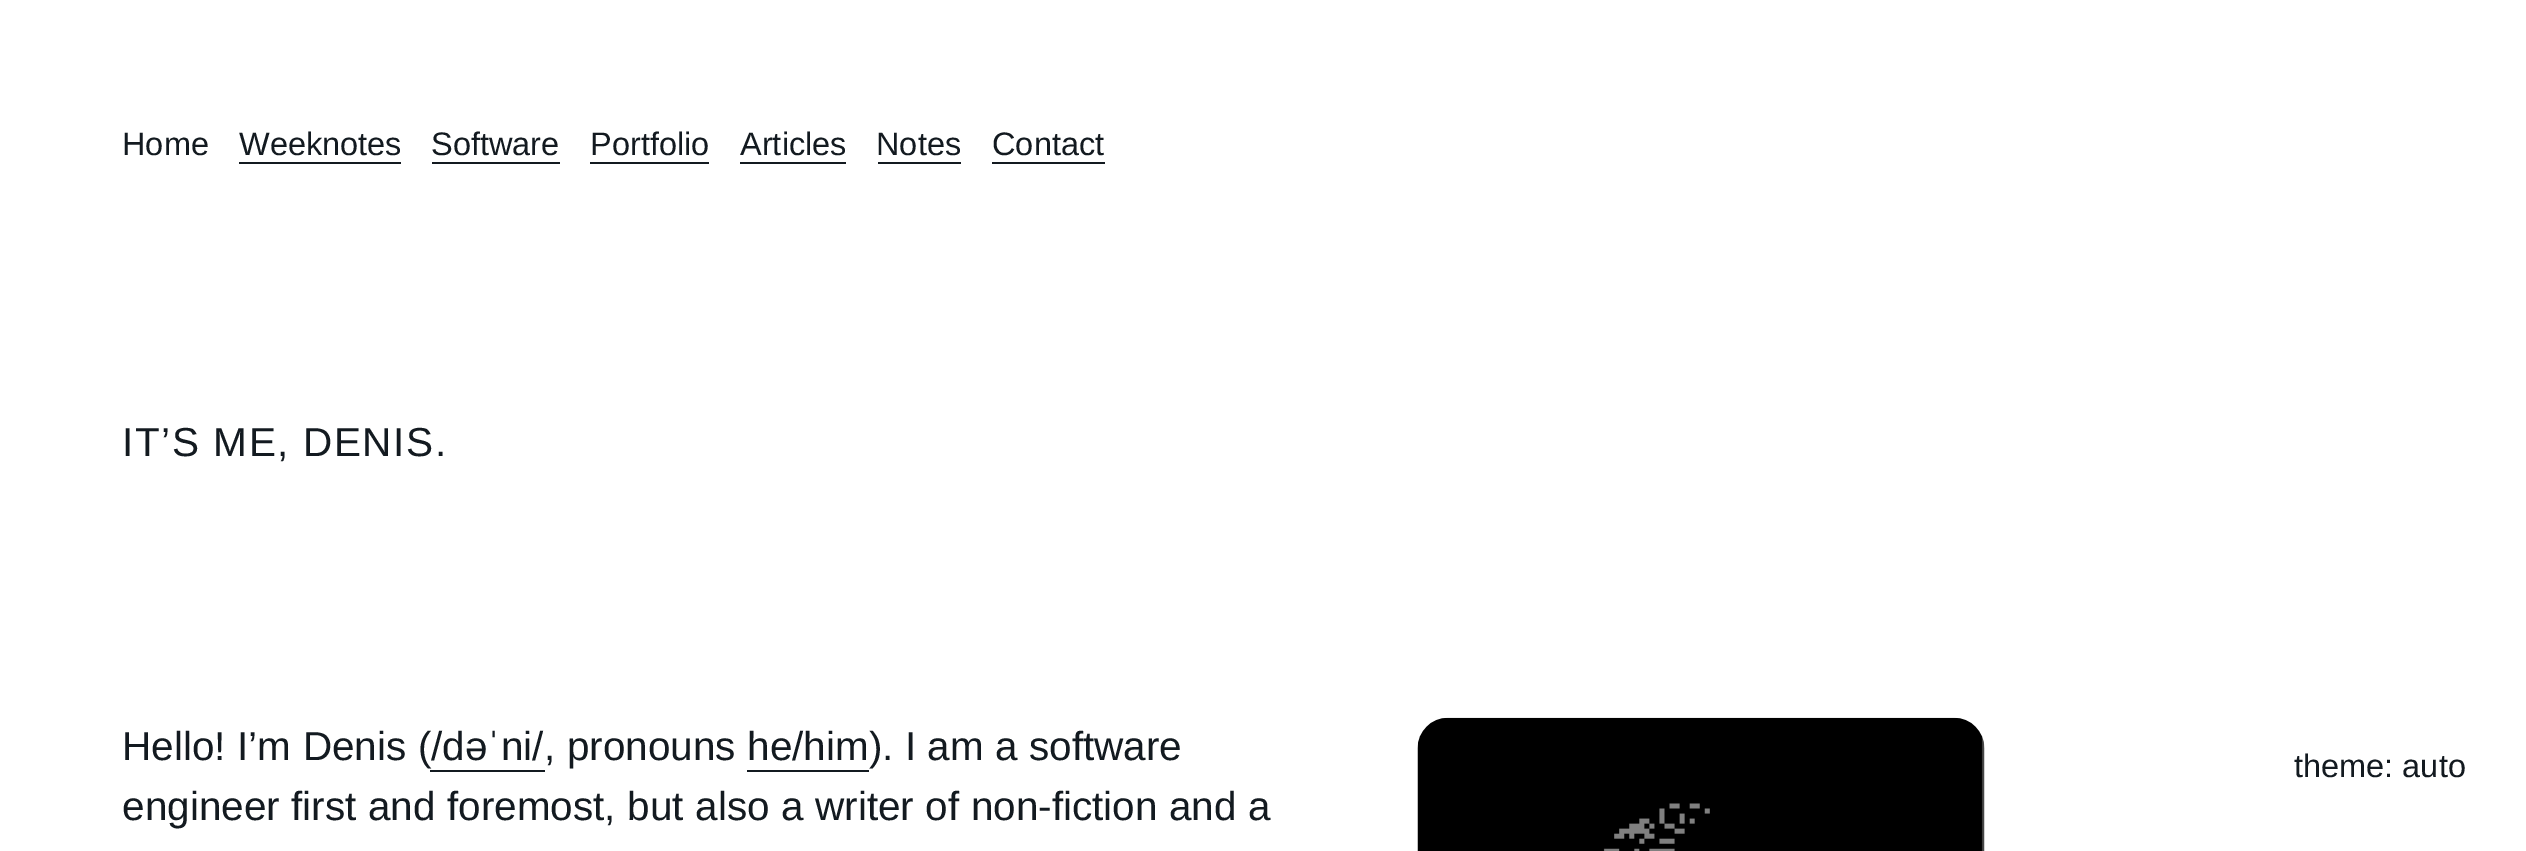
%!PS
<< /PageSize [2526 851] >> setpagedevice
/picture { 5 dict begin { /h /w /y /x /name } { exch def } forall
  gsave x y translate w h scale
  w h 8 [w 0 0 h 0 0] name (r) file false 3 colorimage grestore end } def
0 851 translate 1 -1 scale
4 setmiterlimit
1 setgray
0 0 2526 851 rectfill
/LiberationSans-Regular [32.5 0 0 -32.5 0 0] selectfont
0.075 0.102 0.125 setrgbcolor
122 155 moveto (Home) show
239 155 moveto (Weeknotes) show
239 162 162 2 rectfill
431 155 moveto (Software) show
432 162 128 2 rectfill
590 155 moveto (Portfolio) show
590 162 119 2 rectfill
740 155 moveto (Articles) show
740 162 106 2 rectfill
876 155 moveto (Notes) show
878 162 83 2 rectfill
992 155 moveto (Contact) show
992 162 113 2 rectfill
/LiberationSans-Regular [40.5 0 0 -40.5 0 0] selectfont
122 456 moveto 1.6 0 (IT’S ME, DENIS.) ashow
122 760 moveto 0.25 0 32 (Hello! I’m Denis \() widthshow
431 760 moveto (/dəˈni/) show
430 770 115 2 rectfill
544 760 moveto (, pronouns) show
747 760 moveto (he/him) show
747 770 122 2 rectfill
869 760 moveto (\). I am a software) show
122 820 moveto 0.25 0 32 (engineer first and foremost, but also a writer of non-fiction and a) widthshow
(img1.rgb) 1417 717 568 134 picture
/LiberationSans-Regular [32.5 0 0 -32.5 0 0] selectfont
2294 777 moveto (theme: auto) show
showpage
